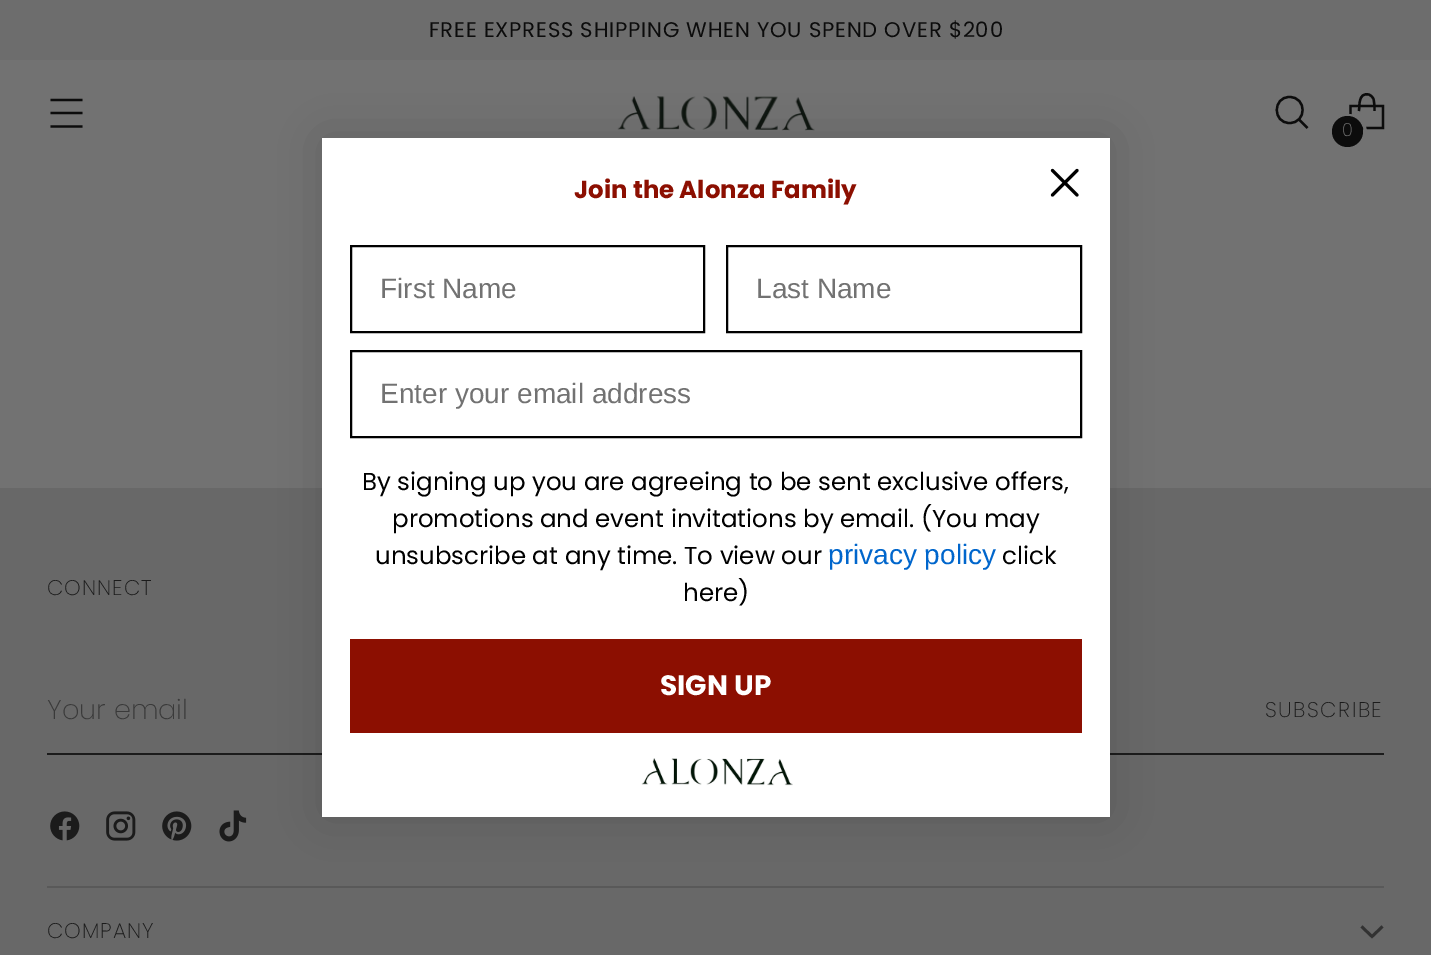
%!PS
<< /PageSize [1431 955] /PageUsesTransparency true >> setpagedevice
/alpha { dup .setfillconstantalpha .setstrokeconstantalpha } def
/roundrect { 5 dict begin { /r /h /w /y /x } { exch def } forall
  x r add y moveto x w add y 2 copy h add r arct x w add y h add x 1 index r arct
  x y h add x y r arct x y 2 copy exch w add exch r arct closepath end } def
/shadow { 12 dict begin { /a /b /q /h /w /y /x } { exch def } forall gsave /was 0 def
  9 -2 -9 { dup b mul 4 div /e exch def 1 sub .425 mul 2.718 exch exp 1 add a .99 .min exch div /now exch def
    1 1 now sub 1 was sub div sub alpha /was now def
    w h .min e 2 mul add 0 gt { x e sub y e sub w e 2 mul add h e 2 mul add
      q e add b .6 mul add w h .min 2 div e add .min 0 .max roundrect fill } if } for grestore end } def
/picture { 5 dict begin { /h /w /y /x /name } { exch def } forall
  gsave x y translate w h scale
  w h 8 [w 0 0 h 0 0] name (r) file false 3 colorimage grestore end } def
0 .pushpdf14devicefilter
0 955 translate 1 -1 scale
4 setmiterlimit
0.447 setgray
0 0 1431 955 rectfill
0.427 setgray
0 0 1431 60 rectfill
/Poppins-Regular [21.2 0 0 -21.2 0 0] selectfont
0.047 setgray
429 37 moveto 0.75 0 (FREE EXPRESS SHIPPING WHEN YOU SPEND OVER $200) ashow
2.3 setlinewidth
newpath 50.5 113 moveto 82.5 113 lineto 50.5 100 moveto 82.5 100 lineto 50.5 126.5 moveto 82.5 126.5 lineto stroke
(img1.rgb) 617 96 198 35 picture
1 setlinecap
newpath 1289.5 123 moveto 1307 123 1307 97 1289.5 97 curveto 1272.5 97 1272.5 123 1289.5 123 curveto closepath stroke
0 setlinecap
newpath 1299 119.5 moveto 1307.5 128 lineto stroke
2 setlinejoin
newpath 1374.5 111 moveto 1374.5 107 1374.5 103 1373.5 99 curveto 1372.5 97 1371 95 1368.5 94.5 curveto 1358.5 92.5 1359.5 105 1359 111 curveto stroke
0 setlinejoin
newpath 1383 128 moveto 1383 106 lineto 1350.5 106 lineto 1350.5 128 lineto closepath stroke
0.447 setgray
3 setlinewidth
newpath 1348.5 132.5 17 0 360 arc closepath stroke
0.047 setgray
newpath 1347.5 131.5 15.5 0 360 arc closepath fill
/Poppins-ExtraLight [18 0 0 -18 0 0] selectfont
0.447 setgray
1342 136 moveto 1 0 (0) ashow
0.408 setgray
0 488 1431 467 rectfill
0.349 setgray
47 886 1337 2 rectfill
/Poppins-ExtraLight [21.2 0 0 -21.2 0 0] selectfont
0.106 setgray
47 595 moveto 1 0 (CONNECT) ashow
47 753 1337 2 rectfill
/Poppins-ExtraLight [27.25 0 0 -27.25 0 0] selectfont
0.227 setgray
47 719 moveto (Your email) show
/Poppins-ExtraLight [21.2 0 0 -21.2 0 0] selectfont
0.106 setgray
1265 717 moveto 1.5 0 (SUBSCRIBE) ashow
(img2.rgb) 50 811 30 30 picture
(img3.rgb) 106 811 30 30 picture
(img4.rgb) 162 811 30 30 picture
(img5.rgb) 219 810 28 32 picture
47 938 moveto 1 0 (COMPANY) ashow
0.196 setgray
2.8 setlinewidth
newpath 1361.5 926.5 moveto 1372 936.5 lineto 1382.5 926.5 lineto stroke
0 setgray
322 138 788 679 0 26 0.15 shadow
1 setgray
322 138 788 679 rectfill
0 setgray
3.1 setlinewidth
1 setlinecap
1 setlinejoin
newpath 1052.5 170.5 moveto 1077 195 lineto 1052.5 195 moveto 1077 170.5 lineto closepath stroke
/Poppins-Bold [24.5 0 0 -24.5 0 0] selectfont
0.549 0.059 0.004 setrgbcolor
574 198 moveto (Join the Alonza Family) show
0 setgray
2 setlinewidth
0 setlinecap
0 setlinejoin
351 246 353 86 rectstroke
/LiberationSans-Regular [28 0 0 -28 0 0] selectfont
0.447 setgray
380 298 moveto (First Name) show
0 setgray
727 246 354 86 rectstroke
0.447 setgray
756 298 moveto (Last Name) show
0 setgray
351 351 730 86 rectstroke
0.447 setgray
380 403 moveto (Enter your email address) show
/Poppins-Regular [24.5 0 0 -24.5 0 0] selectfont
0 setgray
362 490 moveto (By signing up you are agreeing to be sent exclusive offers,) show
392 527 moveto (promotions and event invitations by email. \(You may) show
375 564 moveto (unsubscribe at any time. To view our) show
/LiberationSans-Regular [28 0 0 -28 0 0] selectfont
0 0.4 0.8 setrgbcolor
828 564 moveto (privacy policy) show
/Poppins-Regular [24.5 0 0 -24.5 0 0] selectfont
0 setgray
1002 564 moveto (click) show
683 601 moveto (here\)) show
0.549 0.059 0.004 setrgbcolor
350 639 732 94 rectfill
/Poppins-Bold [28 0 0 -28 0 0] selectfont
1 setgray
660 695 moveto (SIGN UP) show
(img6.rgb) 641 758 152 28 picture
.poppdf14devicefilter showpage
